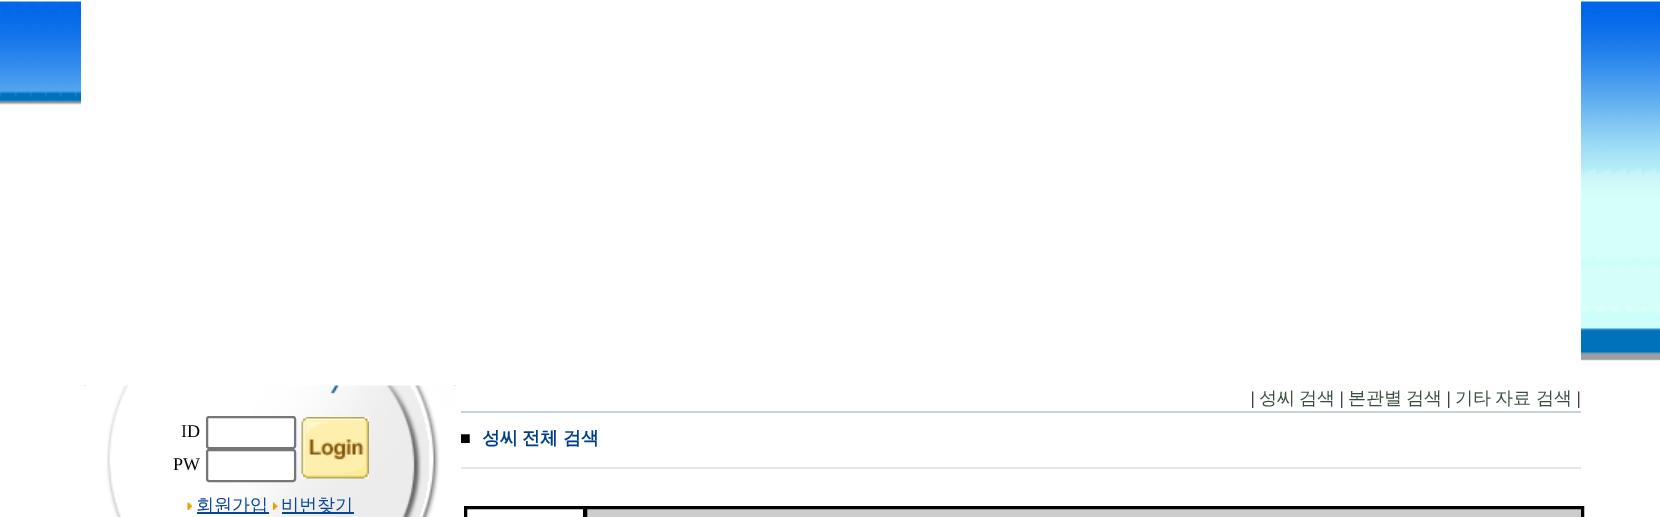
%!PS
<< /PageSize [1660 517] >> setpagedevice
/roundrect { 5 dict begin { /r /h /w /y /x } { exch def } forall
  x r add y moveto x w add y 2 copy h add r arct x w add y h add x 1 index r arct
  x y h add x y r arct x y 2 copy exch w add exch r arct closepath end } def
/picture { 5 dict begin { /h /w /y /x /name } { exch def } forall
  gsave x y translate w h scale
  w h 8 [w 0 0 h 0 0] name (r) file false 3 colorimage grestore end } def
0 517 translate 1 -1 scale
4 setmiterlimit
1 setgray
0 0 1660 517 rectfill
(img1.rgb) 0 1 81 104 picture
(img2.rgb) 1581 1 79 360 picture
/LiberationSerif-Regular [18 0 0 -18 0 0] selectfont
0 setgray
1251 404 moveto (|) show
/WenQuanYiZenHei-Medium [18 0 0 -18 0 0] selectfont
0.227 0.306 0.251 setrgbcolor
1259 404 moveto -1 0 32 (성씨 검색) widthshow
/LiberationSerif-Regular [18 0 0 -18 0 0] selectfont
0 setgray
1340 404 moveto (|) show
/WenQuanYiZenHei-Medium [18 0 0 -18 0 0] selectfont
0.227 0.306 0.251 setrgbcolor
1348 404 moveto -1 0 32 (본관별 검색) widthshow
/LiberationSerif-Regular [18 0 0 -18 0 0] selectfont
0 setgray
1447 404 moveto (|) show
/WenQuanYiZenHei-Medium [18 0 0 -18 0 0] selectfont
0.227 0.306 0.251 setrgbcolor
1455 404 moveto -1 0 32 (기타 자료 검색) widthshow
/LiberationSerif-Regular [18 0 0 -18 0 0] selectfont
0 setgray
1577 404 moveto (|) show
0.776 0.827 0.863 setrgbcolor
461 411 1120 2 rectfill
0 setgray
460 444 moveto (■) show
/WenQuanYiZenHei-Bold [18 0 0 -18 0 0] selectfont
0 0.247 0.533 setrgbcolor
482 444 moveto -1 0 32 (성씨 전체 검색) widthshow
0.906 setgray
461 467 1120 2 rectfill
0 setgray
2 setlinewidth
465 507 1118 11 rectstroke
466 508 118 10 rectstroke
0.8 setgray
newpath 586 508 moveto 1582 508 lineto 1582 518 lineto 586 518 lineto closepath gsave fill grestore
0 setgray
stroke
(img3.rgb) 83 385 374 1 picture
(img4.rgb) 83 385 374 132 picture
/LiberationSerif-Regular [18 0 0 -18 0 0] selectfont
181 437 moveto (ID) show
1 setgray
207 417 88 31 2 roundrect gsave fill grestore
0.463 setgray
stroke
0 setgray
173 470 moveto (PW) show
1 setgray
207 450 88 31 2 roundrect gsave fill grestore
0.463 setgray
stroke
(img5.rgb) 301 417 68 62 picture
(img6.rgb) 187 502 5 8 picture
0.031 0.271 0.58 setrgbcolor
197 512 72 2 rectfill
/WenQuanYiZenHei-Medium [18 0 0 -18 0 0] selectfont
196 511 moveto (회원가입) show
(img7.rgb) 273 502 5 8 picture
282 512 72 2 rectfill
281 511 moveto (비번찾기) show
showpage
